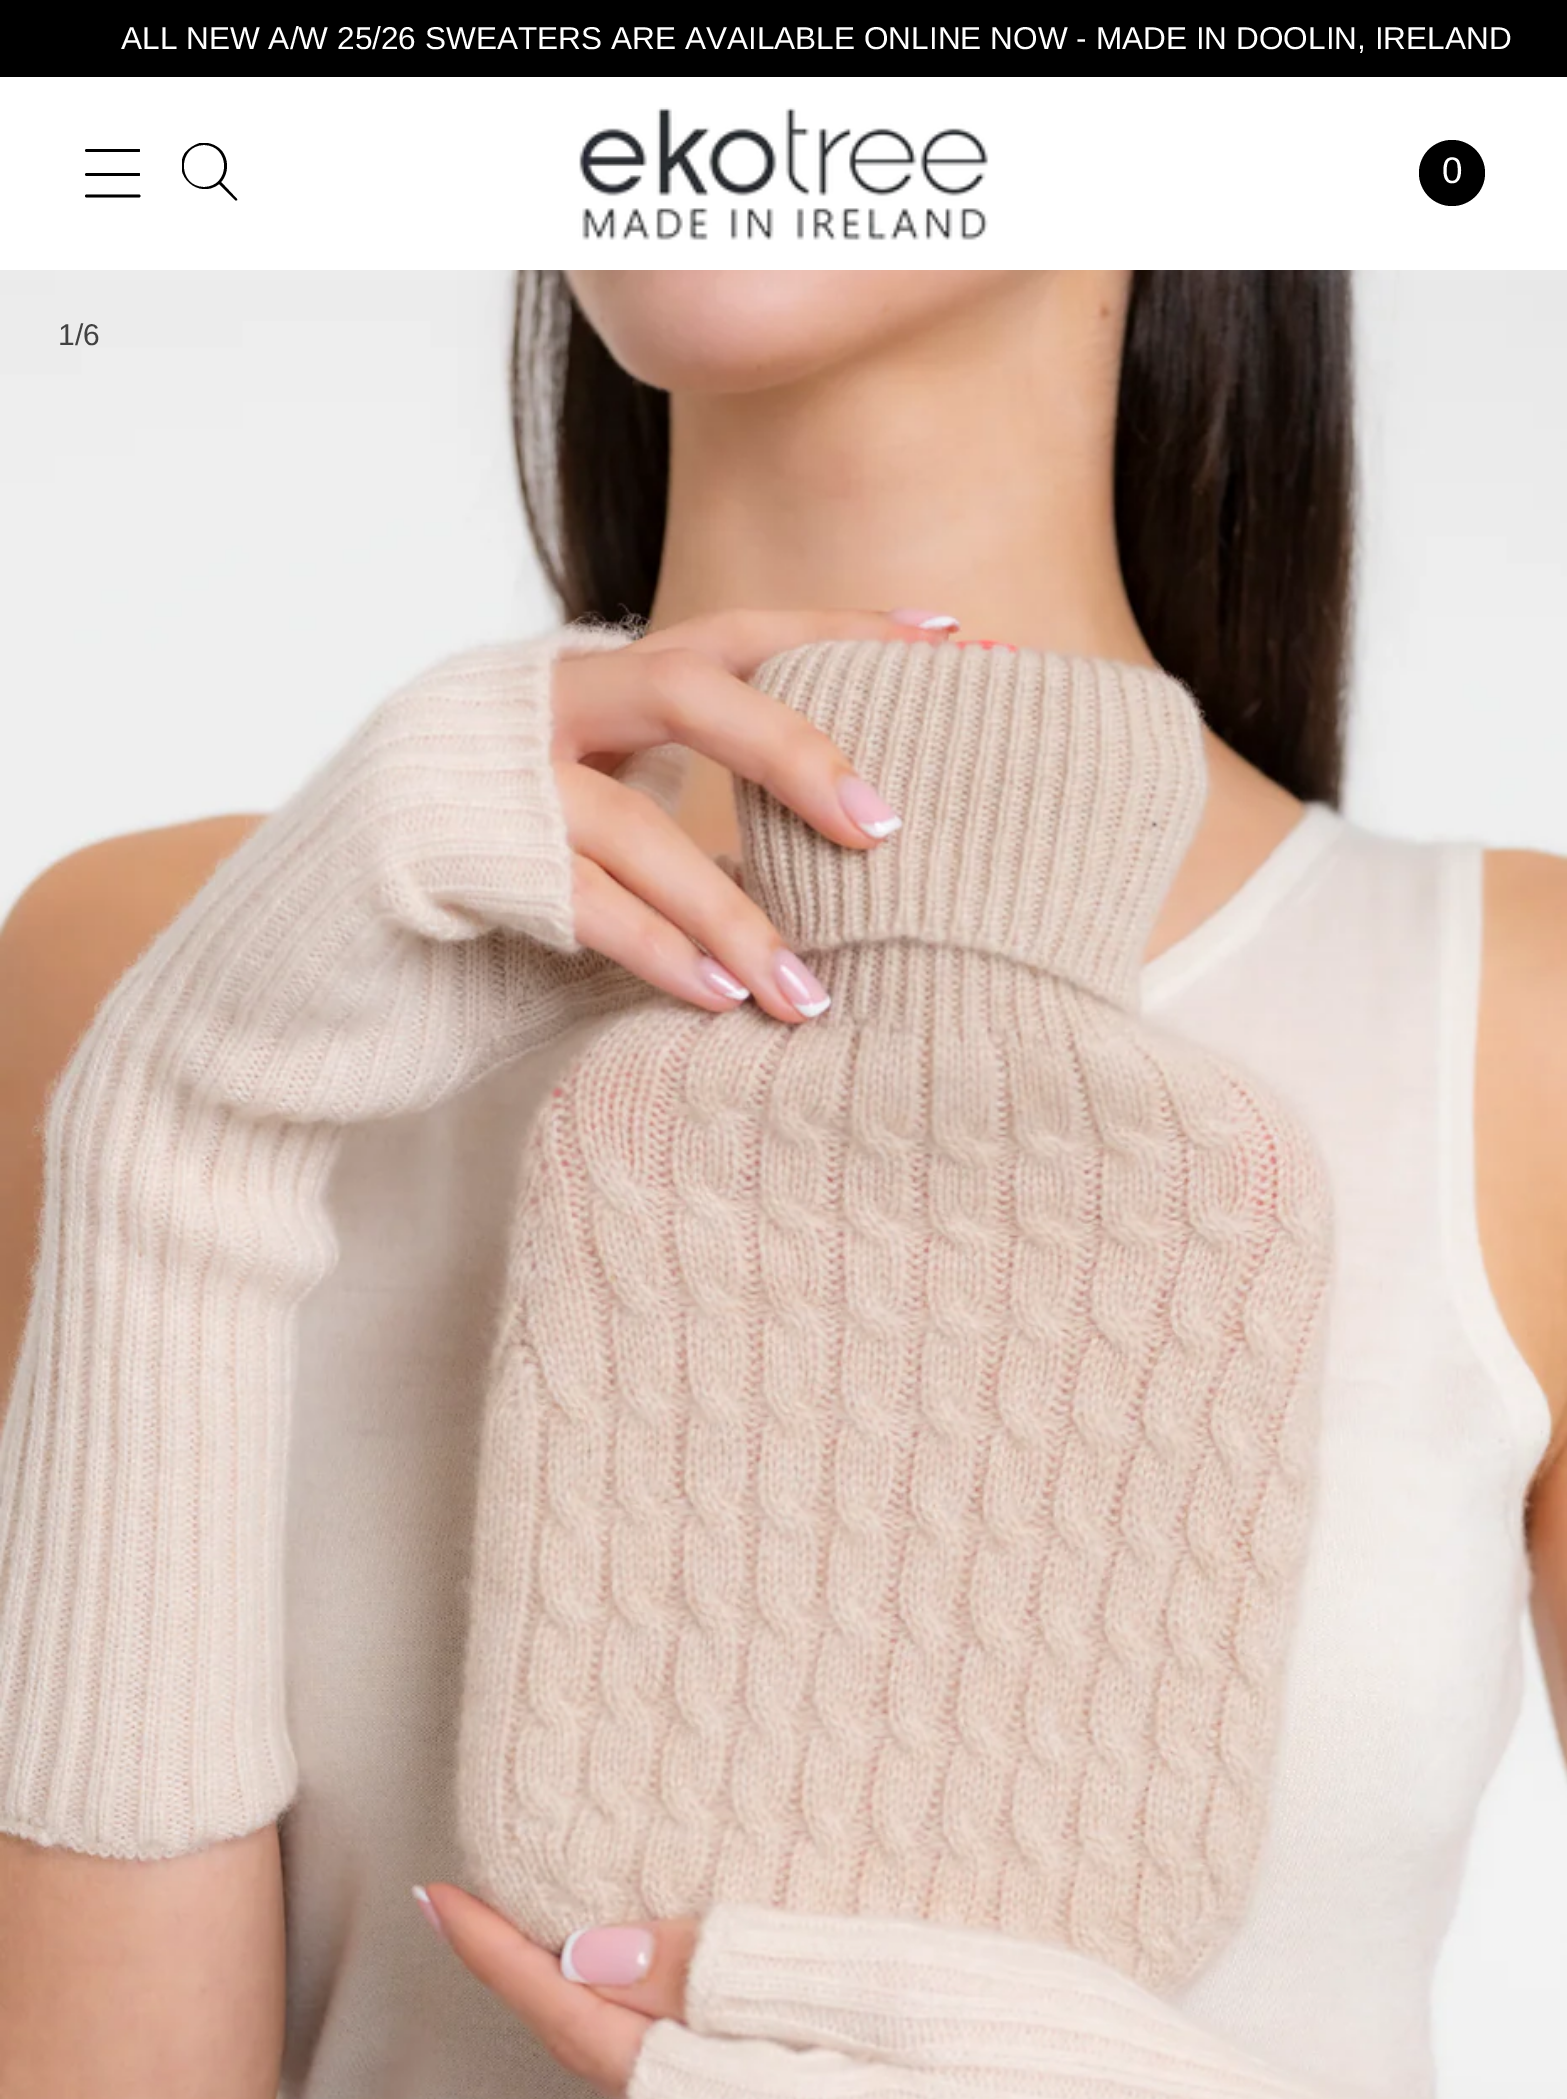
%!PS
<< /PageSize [1567 2099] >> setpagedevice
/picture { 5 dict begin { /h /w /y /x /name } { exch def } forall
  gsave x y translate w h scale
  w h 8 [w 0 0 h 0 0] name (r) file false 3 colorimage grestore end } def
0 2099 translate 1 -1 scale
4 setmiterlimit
1 setgray
0 0 1567 2099 rectfill
0 setgray
0 0 1567 77 rectfill
/LiberationSans-Regular [31.6 0 0 -31.6 0 0] selectfont
1 setgray
121 49 moveto (ALL NEW A/W 25/26 SWEATERS ARE AVAILABLE ONLINE NOW - MADE IN DOOLIN, IRELAND) show
gsave
83 149 57 49 rectclip
0 setgray
2.8 setlinewidth
1 setlinecap
newpath 86.5 150.5 moveto 139 150.5 lineto 86.5 174.5 moveto 139 174.5 lineto stroke
grestore
0 setgray
2.8 setlinewidth
1 setlinecap
newpath 86.5 196 moveto 139 196 lineto stroke
gsave
182 143 57 58 rectclip
newpath 237 199 moveto 221 182 lineto 229 173 229 159 221 150 curveto 215 144 207 142 200 143 curveto 194 145 189 148 185 153 curveto 171 175 199 200 219 184 curveto 235 200 lineto 236 201 238 200 237 199 curveto closepath 204 187 moveto 177 187 177 145 204 145 curveto 231 145 231 187 204 187 curveto closepath fill
grestore
(img1.rgb) 579 107 410 134 picture
newpath 1452 173 33 0 360 arc closepath fill
/LiberationSans-Regular [37 0 0 -37 0 0] selectfont
1 setgray
1442 183 moveto (0) show
(img2.rgb) 0 270 1567 1829 picture
/LiberationSans-Regular [30 0 0 -30 0 0] selectfont
0.259 setgray
58 345 moveto (1/6) show
showpage
